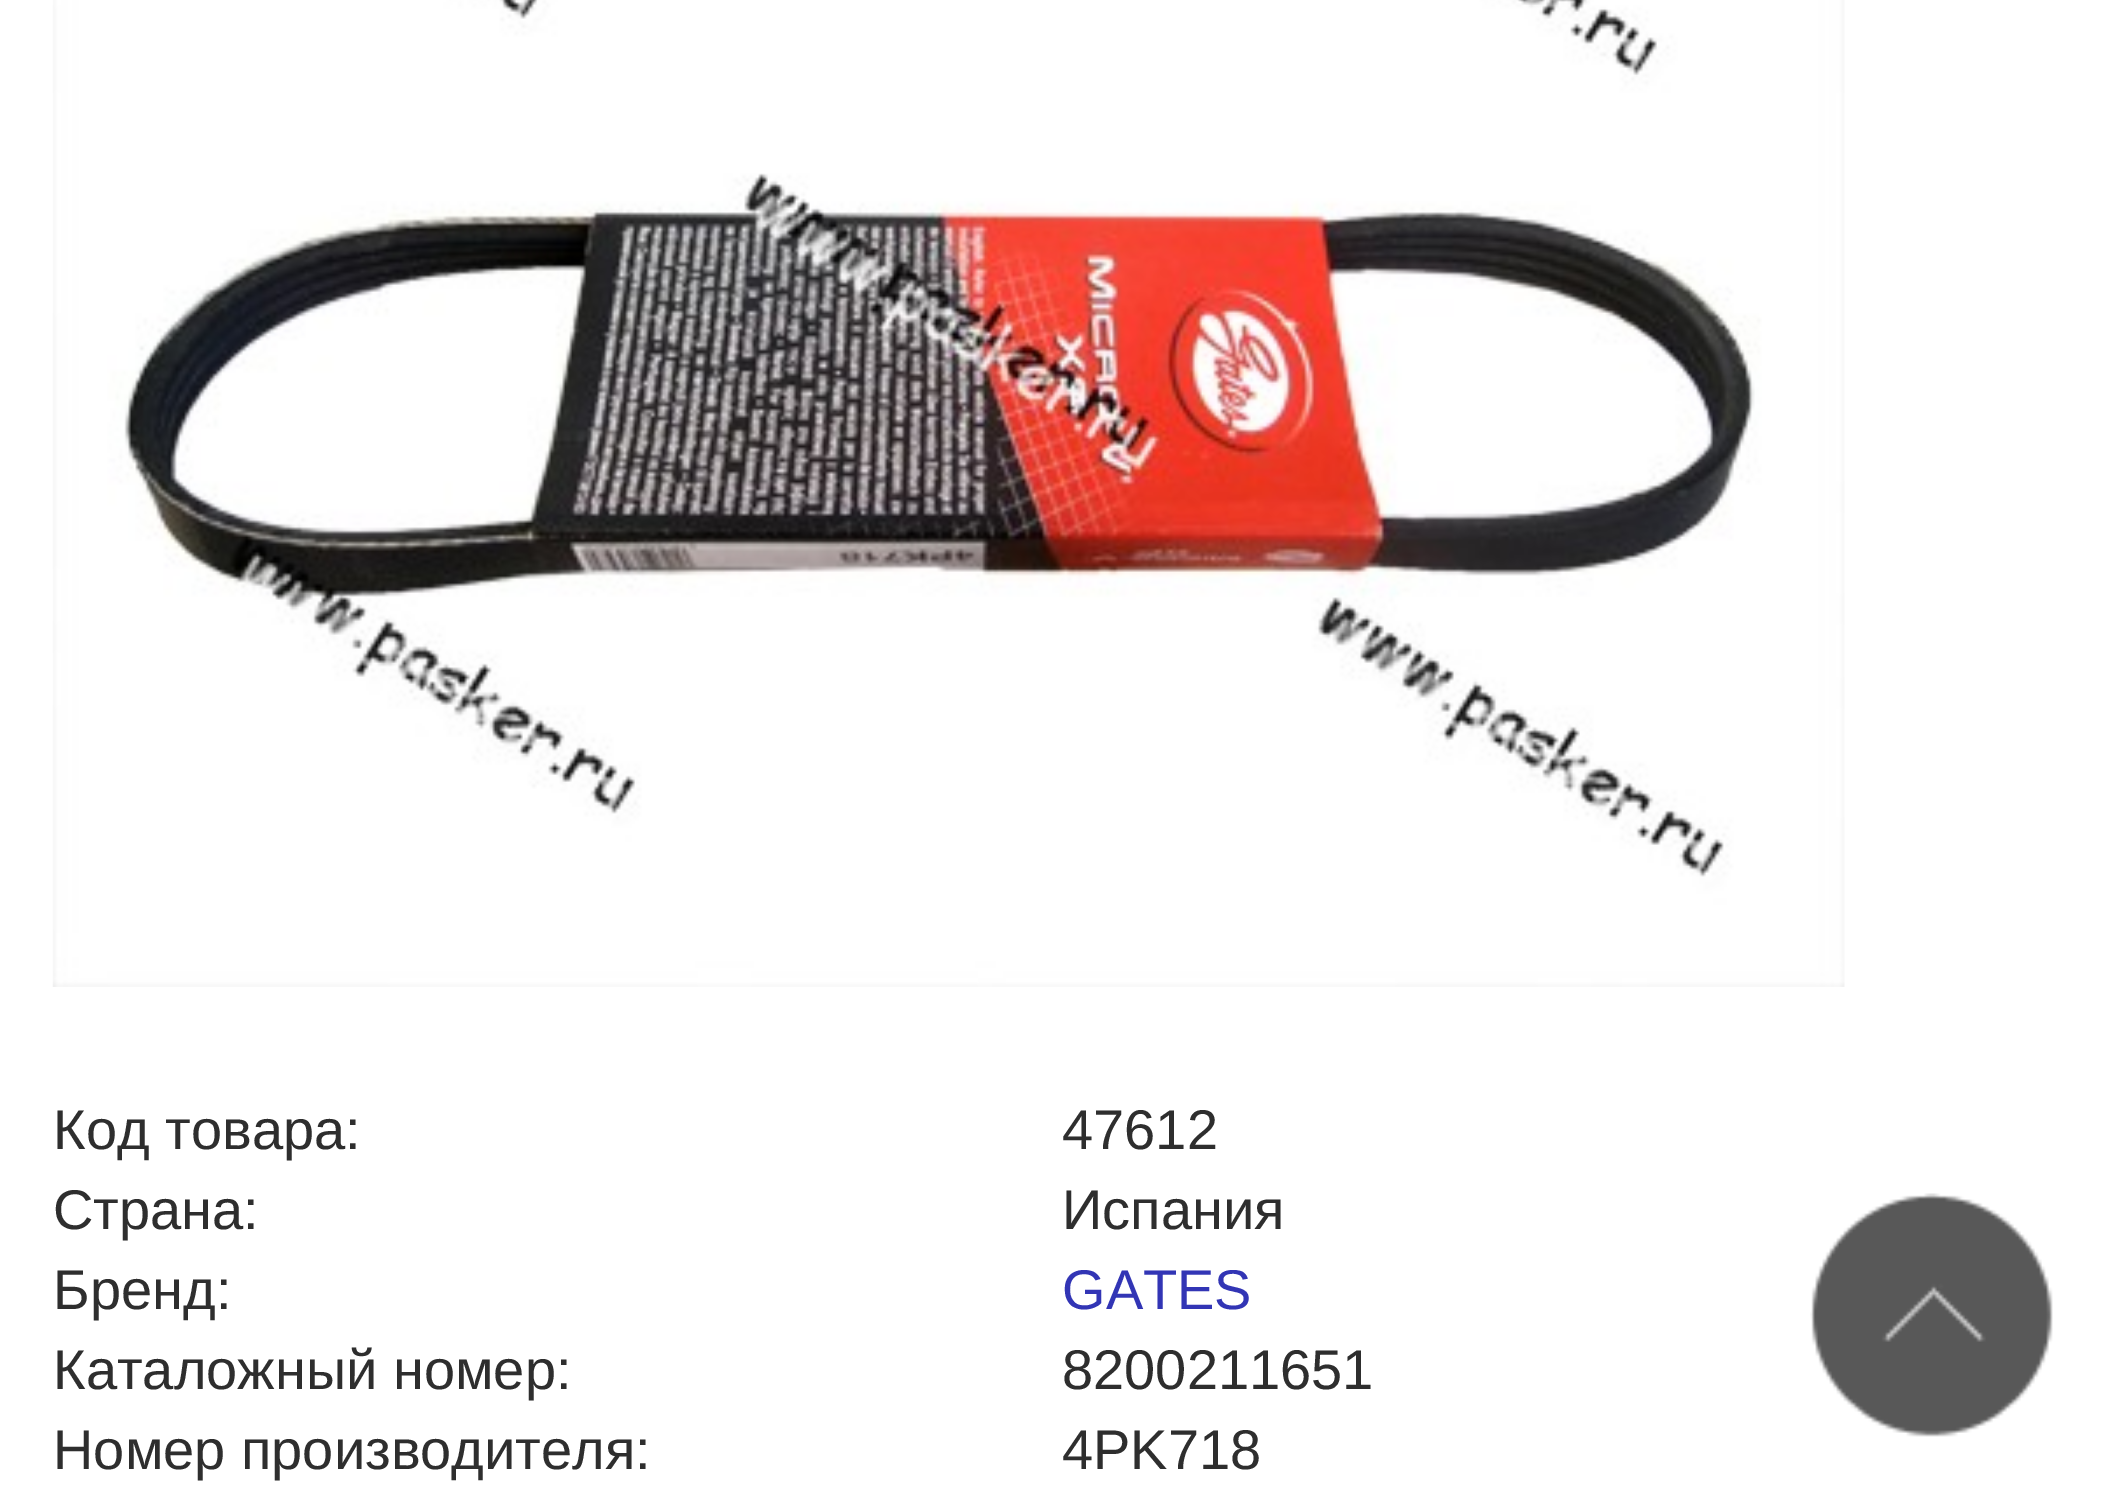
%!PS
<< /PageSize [2123 1507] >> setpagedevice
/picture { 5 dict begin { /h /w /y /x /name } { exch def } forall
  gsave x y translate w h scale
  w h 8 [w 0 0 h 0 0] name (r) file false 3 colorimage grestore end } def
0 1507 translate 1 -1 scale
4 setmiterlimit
1 setgray
0 0 2123 1507 rectfill
(img1.rgb) 52 0 1793 987 picture
/LiberationSans-Regular [56 0 0 -56 0 0] selectfont
0.18 setgray
53 1149 moveto (Код товара:) show
1062 1149 moveto (47612) show
53 1229 moveto (Страна:) show
1062 1229 moveto (Испания) show
53 1309 moveto (Бренд:) show
0.196 0.208 0.71 setrgbcolor
1062 1309 moveto (GATES) show
0.18 setgray
53 1389 moveto (Каталожный номер:) show
1062 1389 moveto (8200211651) show
53 1469 moveto (Номер производителя:) show
1062 1469 moveto (4PK718) show
(img2.rgb) 1810 1193 243 244 picture
showpage
